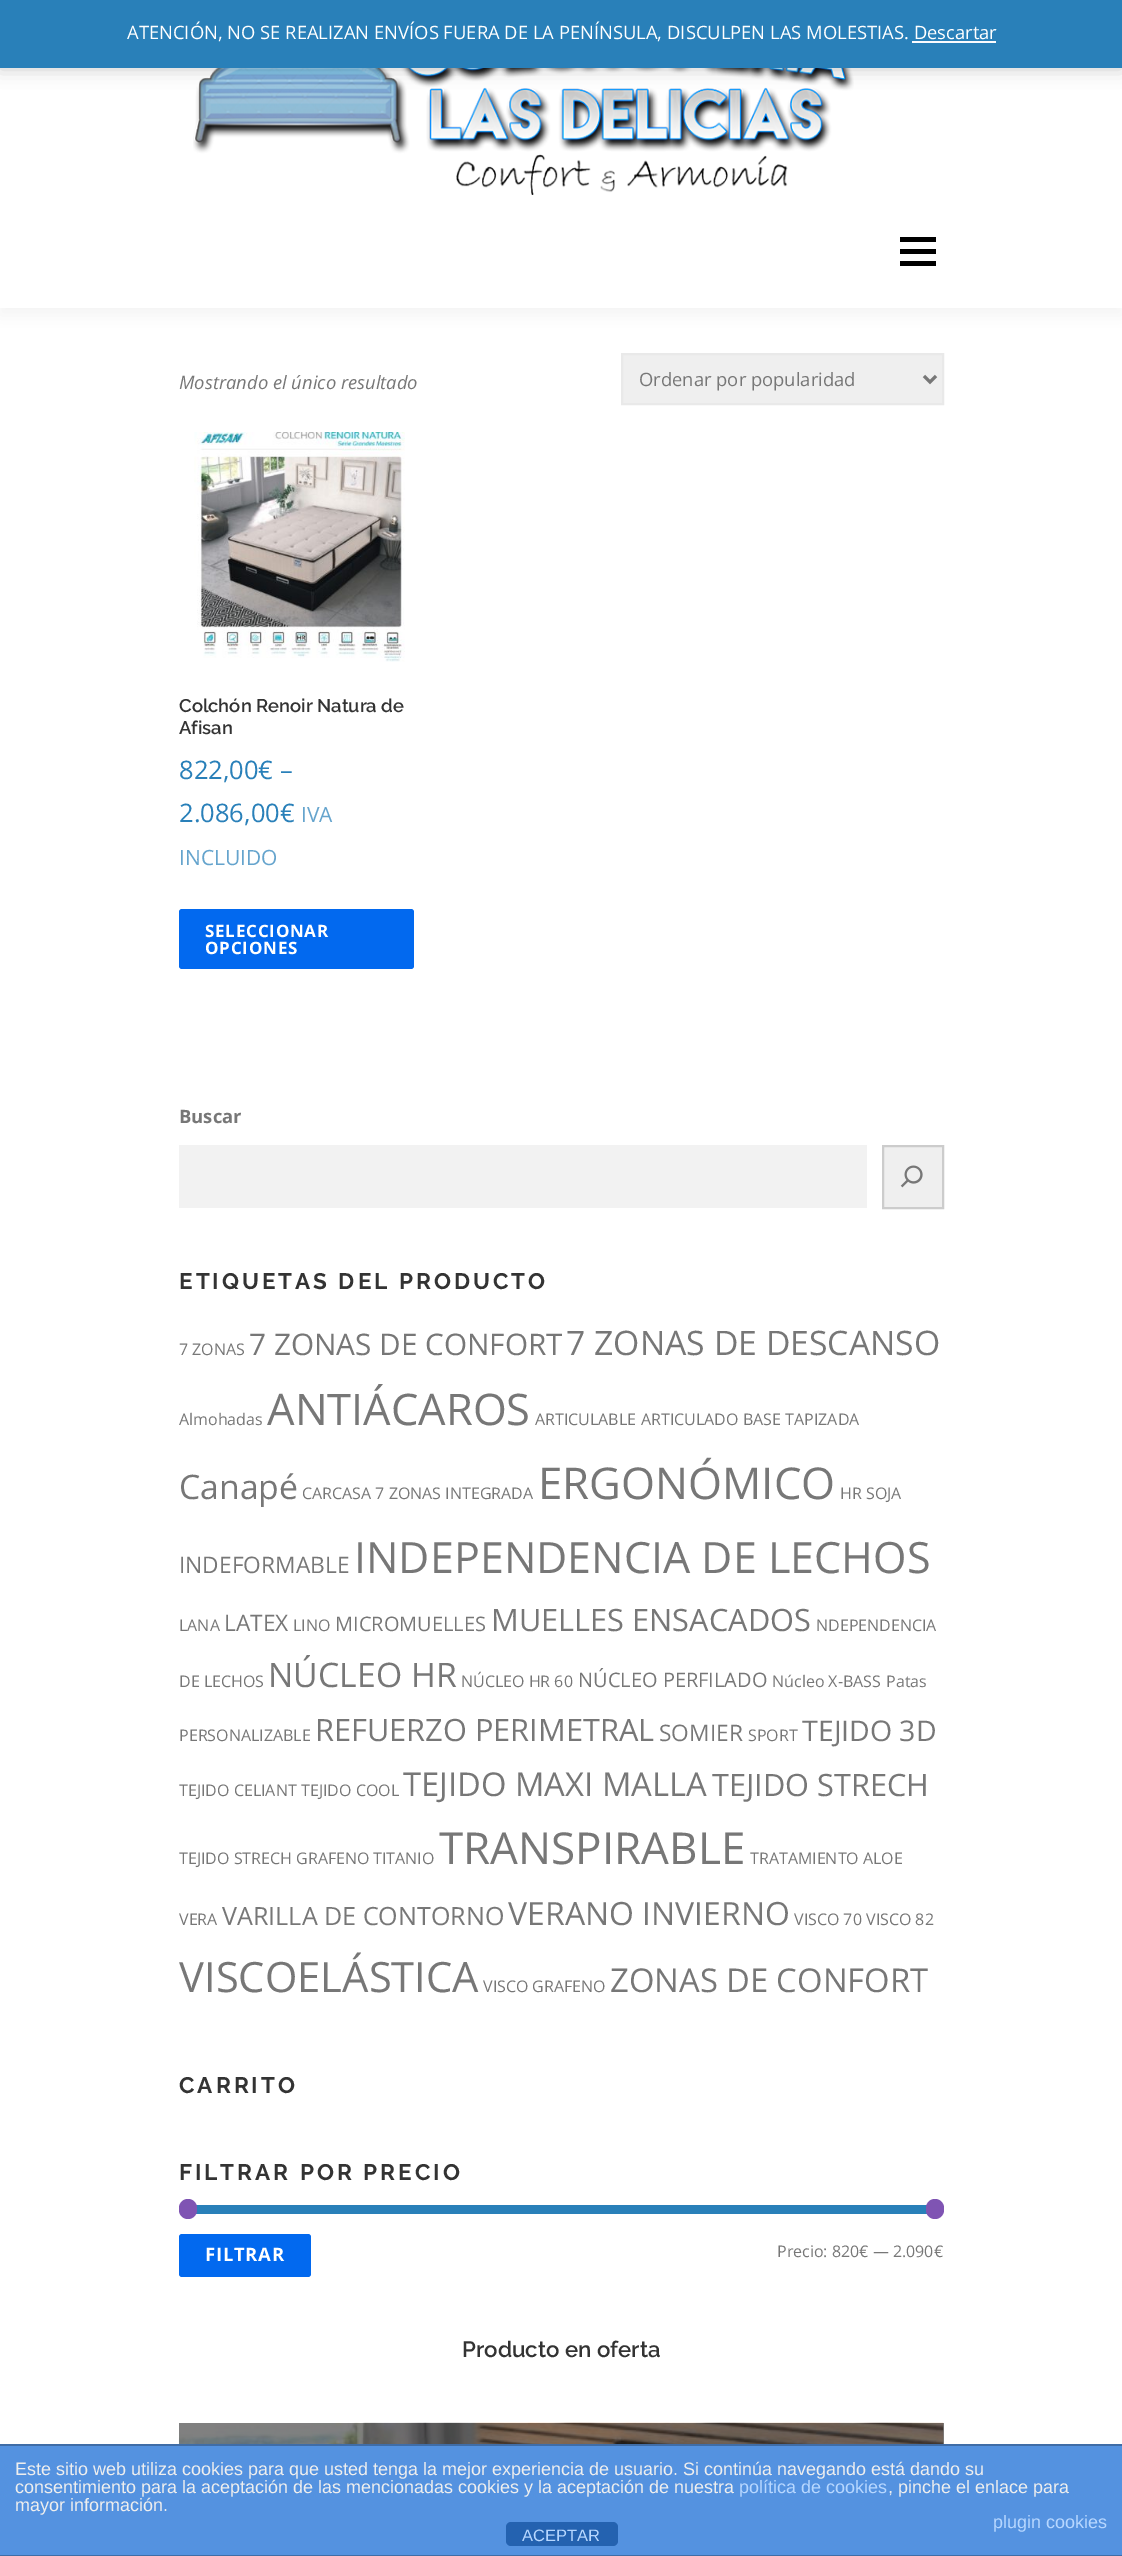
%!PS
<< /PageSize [1122 2556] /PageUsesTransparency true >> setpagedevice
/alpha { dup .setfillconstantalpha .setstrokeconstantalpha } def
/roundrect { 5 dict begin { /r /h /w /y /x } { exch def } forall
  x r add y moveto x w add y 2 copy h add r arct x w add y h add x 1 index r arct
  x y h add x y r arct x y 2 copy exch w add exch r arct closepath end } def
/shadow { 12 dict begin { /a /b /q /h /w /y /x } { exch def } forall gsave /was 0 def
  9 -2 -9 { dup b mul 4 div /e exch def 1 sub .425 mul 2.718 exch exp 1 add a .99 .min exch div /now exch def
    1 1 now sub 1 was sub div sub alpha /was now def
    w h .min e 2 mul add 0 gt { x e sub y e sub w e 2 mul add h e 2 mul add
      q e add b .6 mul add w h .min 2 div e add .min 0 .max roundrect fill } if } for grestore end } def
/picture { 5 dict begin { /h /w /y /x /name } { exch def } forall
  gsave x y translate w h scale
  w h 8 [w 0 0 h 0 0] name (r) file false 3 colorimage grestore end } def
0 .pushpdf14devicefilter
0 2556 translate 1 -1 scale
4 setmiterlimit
1 setgray
0 0 1122 2556 rectfill
0.502 setgray
943 2423 1 21 rectfill
0.196 setgray
0 8 1122 307 0 7.5 0.06 shadow
1 setgray
0 68 1122 240 rectfill
(img1.rgb) 193 68 661 127 picture
0 setgray
0 2 1122 67 0 9 0.2 shadow
0.161 0.502 0.725 setrgbcolor
0 0 1122 68 rectfill
/OpenSans-Regular [18.4 0 0 -18.4 0 0] selectfont
1 setgray
127 39 moveto (ATENCIÓN, NO SE REALIZAN ENVÍOS FUERA DE LA PENÍNSULA, DISCULPEN LAS MOLESTIAS. Descartar) show
0.988 0.984 0.996 setrgbcolor
912 41 84 2 rectfill
0 setgray
900 249 36 5 rectfill
900 237 36 5 rectfill
900 261 36 5 rectfill
/OpenSans-Italic [18.4 0 0 -18.4 0 0] selectfont
0.467 setgray
179 389 moveto (Mostrando el único resultado) show
0.937 setgray
newpath 622 354 moveto 943 354 lineto 943 404 lineto 622 404 lineto closepath gsave fill grestore
0.914 setgray
2 setlinewidth
stroke
0.467 setgray
3 setlinewidth
newpath 924 376 moveto 930 382 lineto 936 376 lineto stroke
/OpenSans-Regular [18.4 0 0 -18.4 0 0] selectfont
639 386 moveto (Ordenar por popularidad) show
(img2.rgb) 194 432 211 230 picture
/Raleway-SemiBold [18.4 0 0 -18.4 0 0] selectfont
0.2 setgray
179 712 moveto (Colchón Renoir Natura de) show
179 734 moveto (Afisan) show
/OpenSans-Regular [25.5 0 0 -25.5 0 0] selectfont
0.161 0.502 0.725 setrgbcolor
179 779 moveto (822,00€ –) show
179 822 moveto (2.086,00€) show
/OpenSans-Regular [21 0 0 -21 0 0] selectfont
0.396 0.643 0.804 setrgbcolor
301 822 moveto (IVA) show
179 865 moveto (INCLUIDO) show
0.008 0.412 0.937 setrgbcolor
179 909 235 60 3 roundrect fill
/OpenSans-Bold [17 0 0 -17 0 0] selectfont
1 setgray
205 937 moveto 0.75 0 (SELECCIONAR) ashow
205 954 moveto 0.75 0 (OPCIONES) ashow
/OpenSans-Bold [18.4 0 0 -18.4 0 0] selectfont
0.467 setgray
179 1123 moveto (Buscar) show
0.949 setgray
179 1145 688 63 rectfill
0.937 setgray
newpath 883 1146 moveto 943 1146 lineto 943 1208 lineto 883 1208 lineto closepath gsave fill grestore
0.8 setgray
2 setlinewidth
stroke
(img3.rgb) 900 1165 23 23 picture
/Raleway-Bold [22.5 0 0 -22.5 0 0] selectfont
0.2 setgray
179 1289 moveto 3 0 (ETIQUETAS DEL PRODUCTO) ashow
/OpenSans-Regular [16 0 0 -16 0 0] selectfont
0.467 setgray
179 1355 moveto (7 ZONAS) show
/OpenSans-Regular [29.75 0 0 -29.75 0 0] selectfont
249 1355 moveto (7 ZONAS DE CONFORT) show
/OpenSans-Regular [33.75 0 0 -33.75 0 0] selectfont
566 1355 moveto (7 ZONAS DE DESCANSO) show
/OpenSans-Regular [16 0 0 -16 0 0] selectfont
179 1425 moveto (Almohadas) show
/OpenSans-Regular [43.5 0 0 -43.5 0 0] selectfont
267 1425 moveto (ANTIÁCAROS) show
/OpenSans-Regular [16 0 0 -16 0 0] selectfont
535 1425 moveto (ARTICULABLE) show
641 1425 moveto (ARTICULADO) show
743 1425 moveto (BASE TAPIZADA) show
/OpenSans-Regular [33.75 0 0 -33.75 0 0] selectfont
179 1499 moveto (Canapé) show
/OpenSans-Regular [16 0 0 -16 0 0] selectfont
302 1499 moveto (CARCASA 7 ZONAS INTEGRADA) show
/OpenSans-Regular [43.75 0 0 -43.75 0 0] selectfont
538 1499 moveto (ERGONÓMICO) show
/OpenSans-Regular [16 0 0 -16 0 0] selectfont
840 1499 moveto (HR SOJA) show
/OpenSans-Regular [22.75 0 0 -22.75 0 0] selectfont
179 1573 moveto (INDEFORMABLE) show
/OpenSans-Regular [43.1 0 0 -43.1 0 0] selectfont
354 1573 moveto (INDEPENDENCIA DE LECHOS) show
/OpenSans-Regular [16 0 0 -16 0 0] selectfont
179 1631 moveto (LANA) show
/OpenSans-Regular [22.75 0 0 -22.75 0 0] selectfont
224 1631 moveto (LATEX) show
/OpenSans-Regular [16 0 0 -16 0 0] selectfont
293 1631 moveto (LINO) show
/OpenSans-Regular [20 0 0 -20 0 0] selectfont
335 1631 moveto (MICROMUELLES) show
/OpenSans-Regular [30.75 0 0 -30.75 0 0] selectfont
491 1631 moveto (MUELLES ENSACADOS) show
/OpenSans-Regular [16 0 0 -16 0 0] selectfont
816 1631 moveto (NDEPENDENCIA) show
179 1687 moveto (DE LECHOS) show
/OpenSans-Regular [33.75 0 0 -33.75 0 0] selectfont
268 1687 moveto (NÚCLEO HR) show
/OpenSans-Regular [16 0 0 -16 0 0] selectfont
461 1687 moveto (NÚCLEO HR 60) show
/OpenSans-Regular [20 0 0 -20 0 0] selectfont
578 1687 moveto (NÚCLEO PERFILADO) show
/OpenSans-Regular [16 0 0 -16 0 0] selectfont
772 1687 moveto (Núcleo X-BASS) show
886 1687 moveto (Patas) show
179 1741 moveto (PERSONALIZABLE) show
/OpenSans-Regular [30.75 0 0 -30.75 0 0] selectfont
315 1741 moveto (REFUERZO PERIMETRAL) show
/OpenSans-Regular [22.75 0 0 -22.75 0 0] selectfont
659 1741 moveto (SOMIER) show
/OpenSans-Regular [16 0 0 -16 0 0] selectfont
748 1741 moveto (SPORT) show
/OpenSans-Regular [28.5 0 0 -28.5 0 0] selectfont
802 1741 moveto (TEJIDO 3D) show
/OpenSans-Regular [16 0 0 -16 0 0] selectfont
179 1796 moveto (TEJIDO CELIANT) show
301 1796 moveto (TEJIDO COOL) show
/OpenSans-Regular [32.75 0 0 -32.75 0 0] selectfont
403 1796 moveto (TEJIDO MAXI MALLA) show
/OpenSans-Regular [30.75 0 0 -30.75 0 0] selectfont
712 1796 moveto (TEJIDO STRECH) show
/OpenSans-Regular [16 0 0 -16 0 0] selectfont
179 1864 moveto (TEJIDO STRECH GRAFENO) show
373 1864 moveto (TITANIO) show
/OpenSans-Regular [44 0 0 -44 0 0] selectfont
439 1864 moveto (TRANSPIRABLE) show
/OpenSans-Regular [16 0 0 -16 0 0] selectfont
750 1864 moveto (TRATAMIENTO ALOE) show
179 1925 moveto (VERA) show
/OpenSans-Regular [25.1 0 0 -25.1 0 0] selectfont
222 1925 moveto (VARILLA DE CONTORNO) show
/OpenSans-Regular [32 0 0 -32 0 0] selectfont
508 1925 moveto (VERANO INVIERNO) show
/OpenSans-Regular [16 0 0 -16 0 0] selectfont
794 1925 moveto (VISCO 70) show
866 1925 moveto (VISCO 82) show
/OpenSans-Regular [41.75 0 0 -41.75 0 0] selectfont
179 1992 moveto (VISCOELÁSTICA) show
/OpenSans-Regular [16 0 0 -16 0 0] selectfont
483 1992 moveto (VISCO GRAFENO) show
/OpenSans-Regular [32.75 0 0 -32.75 0 0] selectfont
610 1992 moveto (ZONAS DE CONFORT) show
/Raleway-Bold [22.5 0 0 -22.5 0 0] selectfont
0.2 setgray
179 2093 moveto 3 0 (CARRITO) ashow
179 2180 moveto 3 0 (FILTRAR POR PRECIO) ashow
0.161 0.502 0.725 setrgbcolor
196 2205 731 9 rectfill
0.498 0.329 0.702 setrgbcolor
179 2199 18 20 9 roundrect fill
926 2199 18 20 9 roundrect fill
0.008 0.412 0.937 setrgbcolor
179 2234 132 43 3 roundrect fill
/OpenSans-Bold [18.5 0 0 -18.5 0 0] selectfont
1 setgray
205 2261 moveto 0.75 0 (FILTRAR) ashow
/OpenSans-Regular [16 0 0 -16 0 0] selectfont
0.467 setgray
777 2257 moveto (Precio: 820€ — 2.090€) show
/Raleway-SemiBold [22.25 0 0 -22.25 0 0] selectfont
0.2 setgray
462 2357 moveto (Producto en oferta) show
(img4.rgb) 178 2422 766 22 picture
0.329 0.573 0.878 setrgbcolor
0 2446 1122 109 rectfill
0.247 0.427 0.655 setrgbcolor
0 2444 1122 2 rectfill
0 2555 1122 1 rectfill
/LiberationSans-Regular [18 0 0 -18 0 0] selectfont
0.933 setgray
15 2475 moveto (Este sitio web utiliza cookies para que usted tenga la mejor experiencia de usuario. Si continúa navegando está dando su) show
15 2493 moveto (consentimiento para la aceptación de las mencionadas cookies y la aceptación de nuestra) show
0.718 0.843 1 setrgbcolor
739 2493 moveto (política de cookies) show
0.933 setgray
888 2493 moveto (, pinche el enlace para) show
15 2511 moveto (mayor información.) show
0.718 0.843 1 setrgbcolor
993 2528 moveto (plugin cookies) show
0.141 0.384 0.69 setrgbcolor
506 2522 112 24 5 roundrect fill
/LiberationSans-Regular [16.5 0 0 -16.5 0 0] selectfont
0.718 0.843 1 setrgbcolor
522 2541 moveto (ACEPTAR) show
.poppdf14devicefilter showpage
